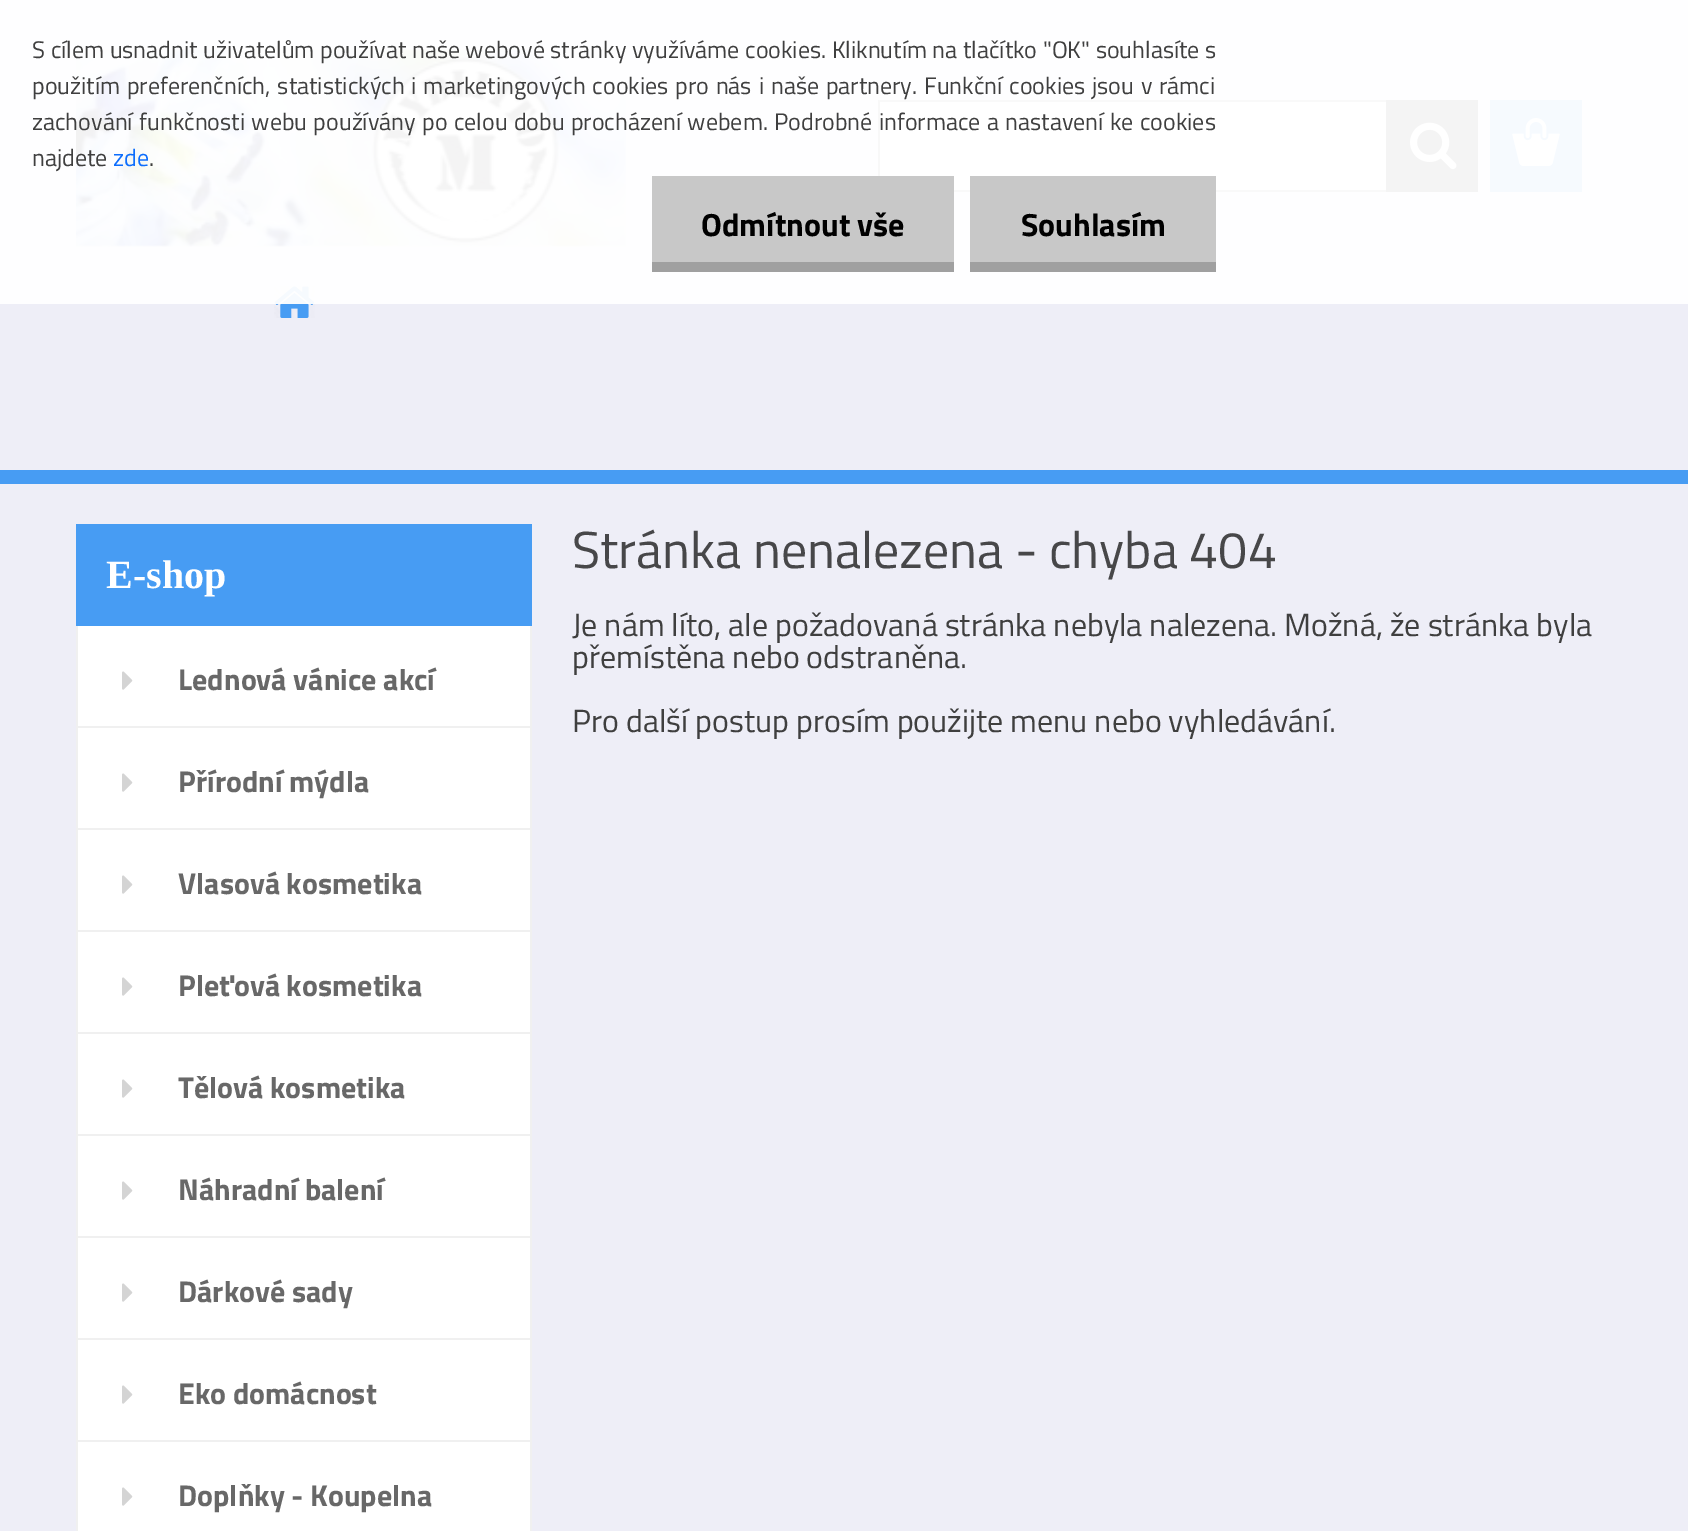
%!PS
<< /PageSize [1688 1531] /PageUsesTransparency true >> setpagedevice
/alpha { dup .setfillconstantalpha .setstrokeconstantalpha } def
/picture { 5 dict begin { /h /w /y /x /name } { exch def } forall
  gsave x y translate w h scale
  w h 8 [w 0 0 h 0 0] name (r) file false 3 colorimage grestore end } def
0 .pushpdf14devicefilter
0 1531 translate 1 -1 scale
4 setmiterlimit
0.933 0.933 0.969 setrgbcolor
0 0 1688 1531 rectfill
(img1.rgb) 76 49 550 198 picture
1 setgray
878 100 508 90 rectfill
0.502 setgray
newpath 878 100 moveto 1386 100 lineto 1386 102 lineto 880 102 lineto closepath fill
newpath 1386 192 moveto 878 192 lineto 880 190 lineto 1386 190 lineto closepath fill
0.5 alpha
0 setgray
newpath 878 192 moveto 878 100 lineto 880 102 lineto 880 190 lineto closepath fill
1 alpha
0.176 setgray
1386 100 92 92 rectfill
(img2.rgb) 1410 122 47 48 picture
(img3.rgb) 274 286 41 32 picture
0.278 0.612 0.953 setrgbcolor
1490 100 92 92 rectfill
(img4.rgb) 1512 118 48 48 picture
0.95 alpha
1 setgray
0 0 1688 304 rectfill
/TitilliumWeb-Regular [24 0 0 -24 0 0] selectfont
1 alpha
0.247 setgray
32 58 moveto 0.25 0 32 (S cílem usnadnit uživatelům používat naše webové stránky využíváme cookies. Kliknutím na tlačítko "OK" souhlasíte s) widthshow
32 94 moveto 1.6 0 32 (použitím preferenčních, statistických i marketingových cookies pro nás i naše partnery. Funkční cookies jsou v rámci) widthshow
32 130 moveto 1.1 0 32 (zachování funkčnosti webu používány po celou dobu procházení webem. Podrobné informace a nastavení ke cookies) widthshow
32 166 moveto (najdete) show
0.051 0.431 0.992 setrgbcolor
113 166 moveto (zde) show
0.247 setgray
149 166 moveto (.) show
0.784 setgray
652 176 302 86 rectfill
0.627 setgray
652 262 302 10 rectfill
/TitilliumWeb-Bold [32 0 0 -32 0 0] selectfont
0 setgray
701 236 moveto (Odmítnout vše) show
0.784 setgray
970 176 246 86 rectfill
0.627 setgray
970 262 246 10 rectfill
0 setgray
1021 236 moveto (Souhlasím) show
0.278 0.612 0.953 setrgbcolor
0 470 1688 14 rectfill
76 524 456 102 rectfill
/LiberationSerif-Bold [40 0 0 -40 0 0] selectfont
1 setgray
106 588 moveto (E-shop) show
78 626 452 100 rectfill
0.941 setgray
530 626 2 905 rectfill
76 726 456 2 rectfill
76 626 2 102 rectfill
(img5.rgb) 122 671 11 19 picture
/TitilliumWeb-Bold [30 0 0 -30 0 0] selectfont
0.408 setgray
178 690 moveto (Lednová vánice akcí) show
1 setgray
78 728 452 100 rectfill
0.941 setgray
76 828 456 2 rectfill
76 728 2 102 rectfill
(img5.rgb) 122 773 11 19 picture
0.408 setgray
178 792 moveto (Přírodní mýdla) show
1 setgray
78 830 452 100 rectfill
0.941 setgray
76 930 456 2 rectfill
76 830 2 102 rectfill
(img5.rgb) 122 875 11 19 picture
0.408 setgray
178 894 moveto (Vlasová kosmetika) show
1 setgray
78 932 452 100 rectfill
0.941 setgray
76 1032 456 2 rectfill
76 932 2 102 rectfill
(img5.rgb) 122 977 11 19 picture
0.408 setgray
178 996 moveto (Pleťová kosmetika) show
1 setgray
78 1034 452 100 rectfill
0.941 setgray
76 1134 456 2 rectfill
76 1034 2 102 rectfill
(img5.rgb) 122 1079 11 19 picture
0.408 setgray
178 1098 moveto (Tělová kosmetika) show
1 setgray
78 1136 452 100 rectfill
0.941 setgray
76 1236 456 2 rectfill
76 1136 2 102 rectfill
(img5.rgb) 122 1181 11 19 picture
0.408 setgray
178 1200 moveto (Náhradní balení) show
1 setgray
78 1238 452 100 rectfill
0.941 setgray
76 1338 456 2 rectfill
76 1238 2 102 rectfill
(img5.rgb) 122 1283 11 19 picture
0.408 setgray
178 1302 moveto (Dárkové sady) show
1 setgray
78 1340 452 100 rectfill
0.941 setgray
76 1440 456 2 rectfill
76 1340 2 191 rectfill
(img5.rgb) 122 1385 11 19 picture
0.408 setgray
178 1404 moveto (Eko domácnost) show
1 setgray
78 1442 452 89 rectfill
(img5.rgb) 122 1487 11 19 picture
0.408 setgray
178 1506 moveto (Doplňky - Koupelna) show
/TitilliumWeb-Regular [52 0 0 -52 0 0] selectfont
0.278 0.278 0.286 setrgbcolor
572 568 moveto (Stránka nenalezena - chyba 404) show
/TitilliumWeb-Regular [32 0 0 -32 0 0] selectfont
0.247 setgray
572 636 moveto (Je nám líto, ale požadovaná stránka nebyla nalezena. Možná, že stránka byla) show
572 668 moveto (přemístěna nebo odstraněna.) show
572 732 moveto (Pro další postup prosím použijte menu nebo vyhledávání.) show
.poppdf14devicefilter showpage
